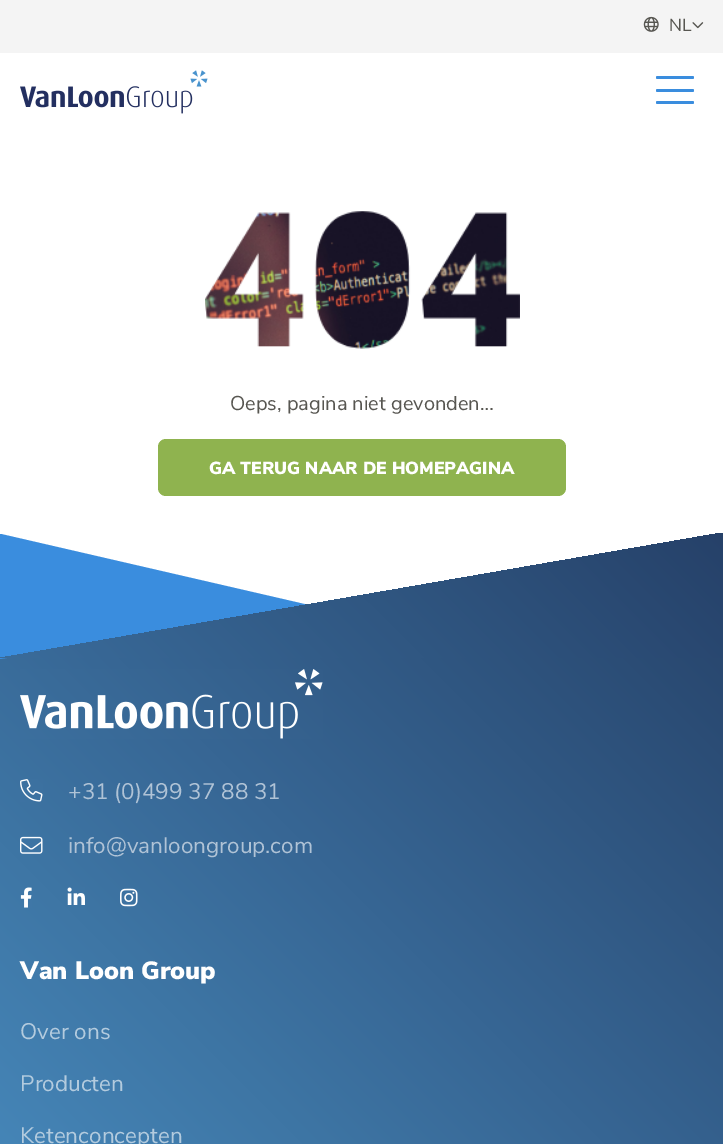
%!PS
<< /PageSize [723 1144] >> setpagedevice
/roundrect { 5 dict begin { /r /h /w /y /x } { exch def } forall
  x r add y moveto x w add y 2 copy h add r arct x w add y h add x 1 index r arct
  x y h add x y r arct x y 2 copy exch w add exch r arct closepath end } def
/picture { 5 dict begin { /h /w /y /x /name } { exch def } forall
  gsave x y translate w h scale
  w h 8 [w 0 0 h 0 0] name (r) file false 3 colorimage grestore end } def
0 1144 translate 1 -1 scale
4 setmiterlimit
1 setgray
0 0 723 1144 rectfill
0.957 setgray
0 0 723 53 rectfill
(img1.rgb) 643 16 16 16 picture
/NunitoSans-Regular [17.5 0 0 -17.5 0 0] selectfont
0.341 0.337 0.318 setrgbcolor
669 31 moveto (NL) show
(img2.rgb) 692 22 12 7 picture
(img3.rgb) 20 70 188 44 picture
0.227 0.553 0.871 setrgbcolor
656 89 38 3 1.5 roundrect fill
656 76 38 3 1.5 roundrect fill
656 101 38 3 1.5 roundrect fill
(img4.rgb) 205 211 315 138 picture
/NunitoSans-Regular [20 0 0 -20 0 0] selectfont
0.341 0.337 0.318 setrgbcolor
230 410 moveto (Oeps, pagina niet gevonden…) show
0.561 0.702 0.31 setrgbcolor
158 439 408 57 8 roundrect fill
/NunitoSans-Black [17.5 0 0 -17.5 0 0] selectfont
1 setgray
209 474 moveto (GA TERUG NAAR DE HOMEPAGINA) show
gsave newpath 0 658 moveto 723 658 lineto 723 1144 lineto 0 1144 lineto closepath clip newpath
<< /ShadingType 2 /ColorSpace /DeviceRGB /Coords [-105 1040 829 105] /Extend [true true] /Function << /FunctionType 2 /Domain [0 1] /C0 [0.271 0.522 0.718] /C1 [0.102 0.149 0.29] /N 1 >> >> shfill grestore
0.227 0.553 0.871 setrgbcolor
newpath 0 534 moveto 0 659 lineto 326 609 lineto 1 534 lineto closepath fill
gsave newpath 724 533 moveto 721 533 lineto 0 658 lineto 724 658 lineto closepath clip newpath
<< /ShadingType 2 /ColorSpace /DeviceRGB /Coords [-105 1040 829 105] /Extend [true true] /Function << /FunctionType 2 /Domain [0 1] /C0 [0.271 0.522 0.718] /C1 [0.102 0.149 0.29] /N 1 >> >> shfill grestore
(img5.rgb) 20 669 303 70 picture
(img6.rgb) 20 779 23 23 picture
/NunitoSans-Regular [22.5 0 0 -22.5 0 0] selectfont
0.69 0.765 0.839 setrgbcolor
68 799 moveto (+31 \(0\)499 37 88 31) show
(img7.rgb) 20 836 23 18 picture
68 853 moveto (info@vanloongroup.com) show
(img8.rgb) 20 887 12 21 picture
(img9.rgb) 67 887 18 18 picture
(img10.rgb) 120 888 18 19 picture
/NunitoSans-Black [25 0 0 -25 0 0] selectfont
1 setgray
20 979 moveto (Van Loon Group) show
/NunitoSans-Regular [22.5 0 0 -22.5 0 0] selectfont
0.702 0.796 0.871 setrgbcolor
20 1039 moveto (Over ons) show
20 1091 moveto (Producten) show
20 1143 moveto (Ketenconcepten) show
showpage
